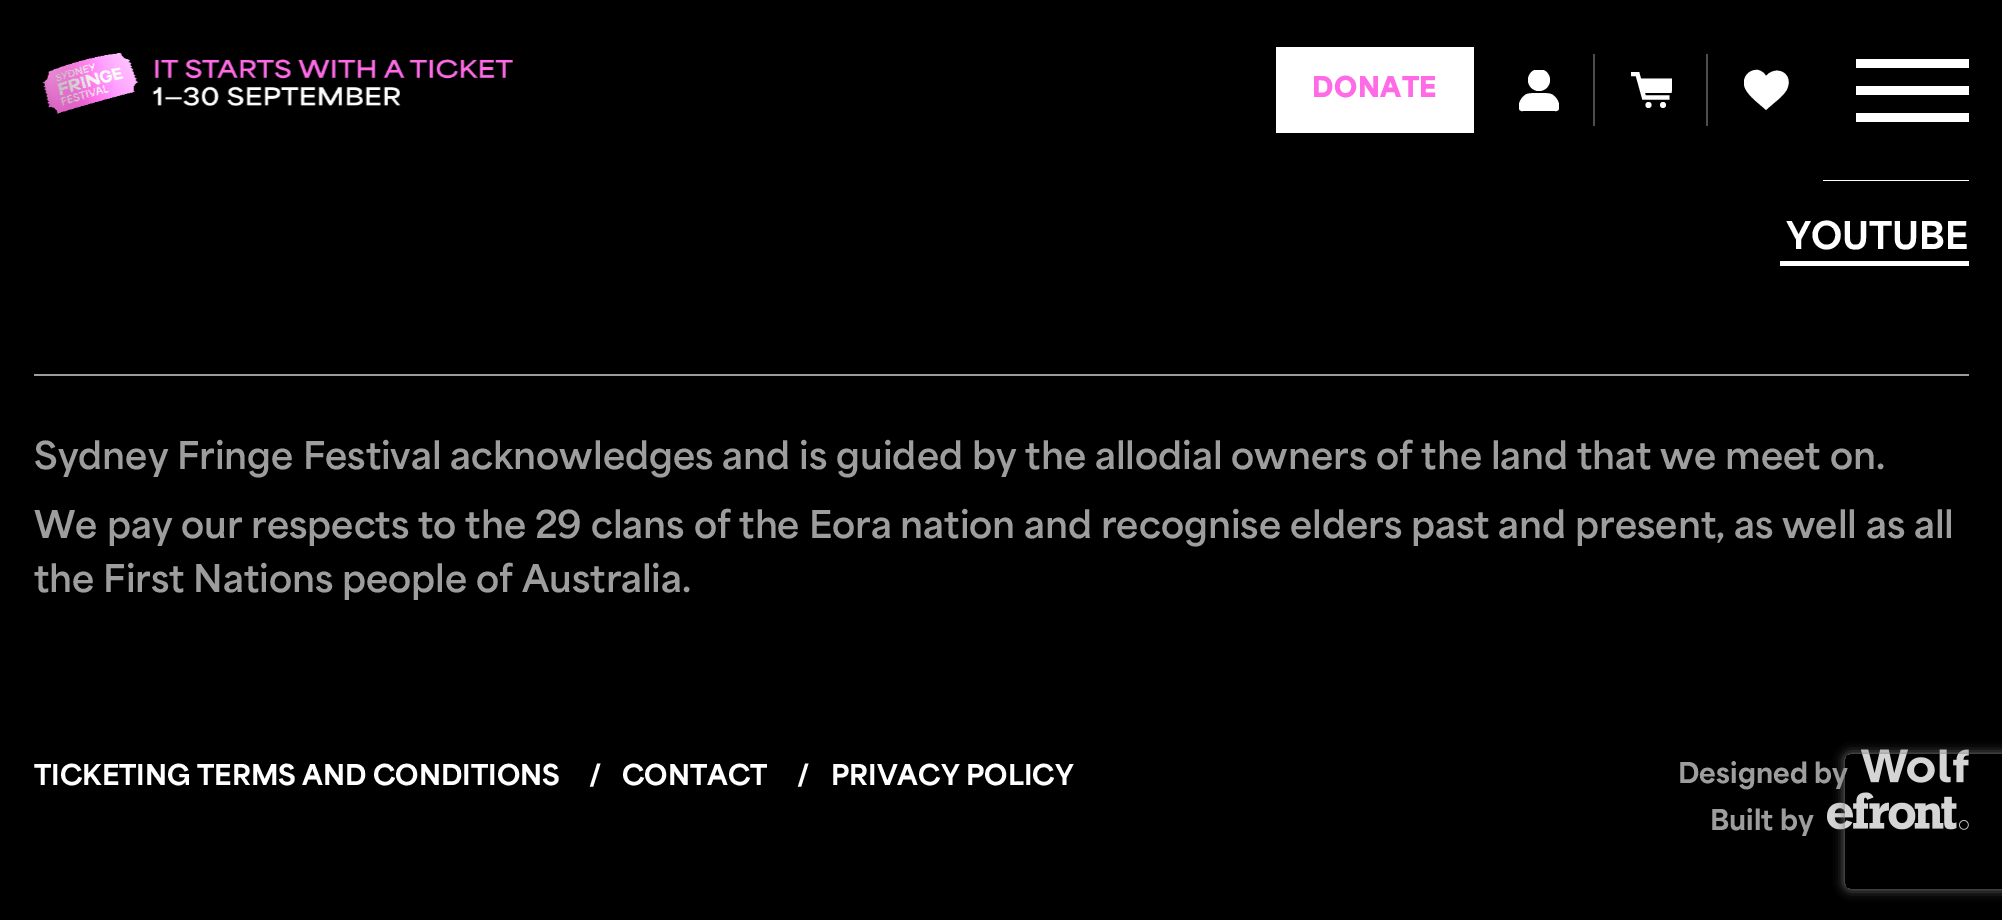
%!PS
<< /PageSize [2002 920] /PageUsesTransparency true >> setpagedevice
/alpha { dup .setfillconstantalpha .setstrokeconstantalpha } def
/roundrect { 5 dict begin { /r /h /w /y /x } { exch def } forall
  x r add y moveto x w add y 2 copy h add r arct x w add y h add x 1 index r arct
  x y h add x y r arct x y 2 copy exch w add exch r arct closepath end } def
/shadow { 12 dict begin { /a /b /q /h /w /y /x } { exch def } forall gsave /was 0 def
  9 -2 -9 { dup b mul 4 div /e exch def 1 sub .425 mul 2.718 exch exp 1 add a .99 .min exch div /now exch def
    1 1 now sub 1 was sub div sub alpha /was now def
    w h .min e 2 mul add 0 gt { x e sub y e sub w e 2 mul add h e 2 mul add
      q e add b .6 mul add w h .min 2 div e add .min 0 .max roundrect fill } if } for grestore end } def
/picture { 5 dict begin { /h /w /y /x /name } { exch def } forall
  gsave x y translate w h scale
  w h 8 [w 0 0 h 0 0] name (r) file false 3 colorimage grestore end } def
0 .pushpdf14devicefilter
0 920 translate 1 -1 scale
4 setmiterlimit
0 setgray
0 0 2002 920 rectfill
(img1.rgb) 42 53 471 61 picture
1 setgray
1276 47 198 86 rectfill
/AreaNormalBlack-Black [27 0 0 -27 0 0] selectfont
1 0.42 0.902 setrgbcolor
1312 97 moveto 0.5 0 (DONATE) ashow
gsave
1519 70 40 43 rectclip
1 setgray
newpath 1539 80 11 0 360 arc closepath fill
newpath 1523 111 moveto 1515 112 1519 97 1527 94 curveto 1530 93 1535 93 1539 93 curveto 1543 93 1548 93 1551 94 curveto 1559 97 1563 112 1555 111 curveto closepath fill
grestore
0.302 setgray
1593 54 2 72 rectfill
gsave
1631 72 41 36 rectclip
1 setgray
4.2 setlinewidth
newpath 1629.5 74 moveto 1637.5 74 lineto 1644 97.5 lineto 1669.5 97.5 lineto stroke
newpath 1640 78.5 moveto 1673.5 78.5 lineto 1671.5 93 lineto 1643 93 lineto closepath fill
grestore
1 setgray
newpath 1663 105 3 0 360 arc closepath fill
newpath 1648.5 105 3 0 360 arc closepath fill
0.302 setgray
1706 54 2 72 rectfill
gsave
1744 68 45 45 rectclip
1 setgray
newpath 1766 76 moveto 1777 64 1794 74 1787 89 curveto 1784 96 1772 104 1766 110 curveto 1760 104 1749 97 1745 88 curveto 1741 79 1748 69 1758 70 curveto 1762 71 1764 73 1766 76 curveto closepath fill
grestore
1 setgray
1856 59 113 9 rectfill
1856 86 113 9 rectfill
1856 113 113 9 rectfill
1823 180 146 1 rectfill
/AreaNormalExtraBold-ExtraBold [36 0 0 -36 0 0] selectfont
1786 249 moveto (YOUTUBE) show
1780 261 189 5 rectfill
0.616 setgray
34 374 1935 2 rectfill
/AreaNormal-Bold [36 0 0 -36 0 0] selectfont
34 469 moveto (Sydney Fringe Festival acknowledges and is guided by the allodial owners of the land that we meet on.) show
34 538 moveto (We pay our respects to the 29 clans of the Eora nation and recognise elders past and present, as well as all) show
34 592 moveto (the First Nations people of Australia.) show
/AreaNormalExtraBold-ExtraBold [27 0 0 -27 0 0] selectfont
1 setgray
34 785 moveto (TICKETING TERMS AND CONDITIONS) show
589 785 moveto (/) show
622 785 moveto (CONTACT) show
797 785 moveto (/) show
831 785 moveto (PRIVACY POLICY) show
0.616 setgray
1678 783 moveto (Designed by) show
(img2.rgb) 1861 749 108 34 picture
1710 830 moveto (Built by) show
(img3.rgb) 1827 792 142 38 picture
gsave
newpath 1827 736 moveto 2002 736 lineto 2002 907 lineto 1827 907 lineto closepath 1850 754 moveto 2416 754 lineto 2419 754 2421 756 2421 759 curveto 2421 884 lineto 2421 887 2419 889 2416 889 curveto 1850 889 lineto 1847 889 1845 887 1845 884 curveto 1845 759 lineto 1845 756 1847 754 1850 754 curveto closepath eoclip newpath
0.502 setgray
1845 754 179 135 5 5.5 1 shadow
grestore
.poppdf14devicefilter showpage
